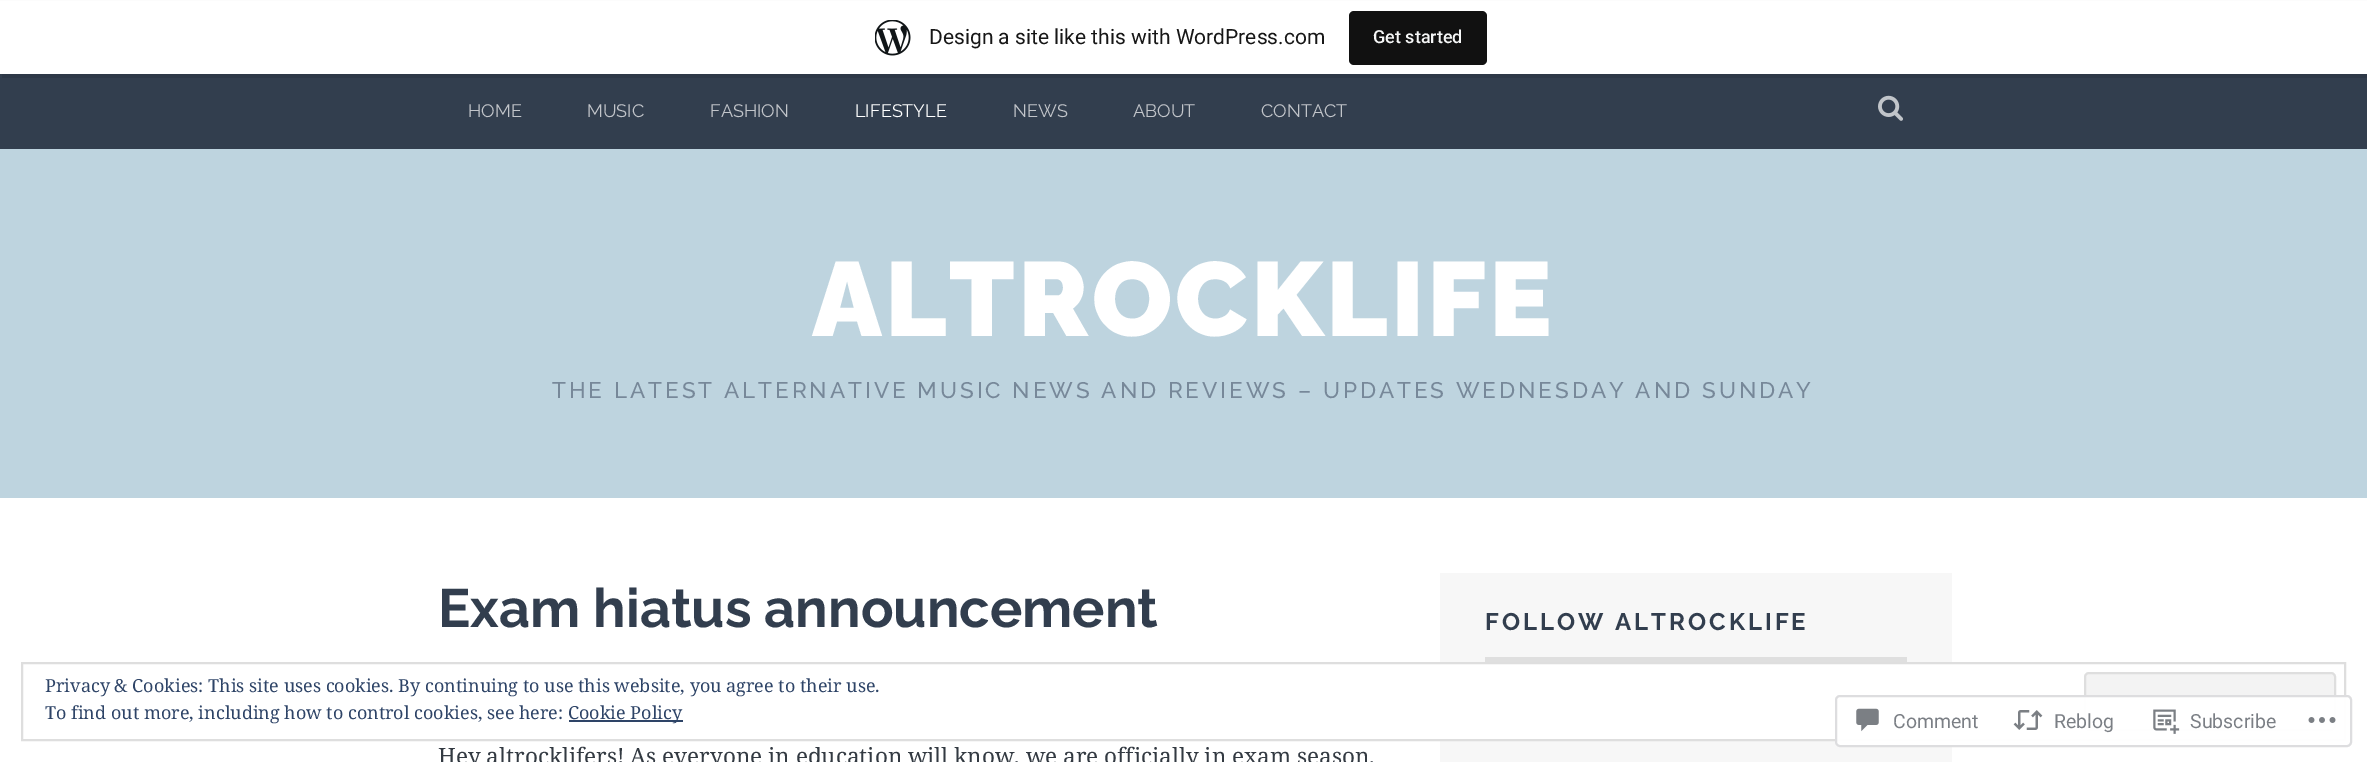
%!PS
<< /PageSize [2367 762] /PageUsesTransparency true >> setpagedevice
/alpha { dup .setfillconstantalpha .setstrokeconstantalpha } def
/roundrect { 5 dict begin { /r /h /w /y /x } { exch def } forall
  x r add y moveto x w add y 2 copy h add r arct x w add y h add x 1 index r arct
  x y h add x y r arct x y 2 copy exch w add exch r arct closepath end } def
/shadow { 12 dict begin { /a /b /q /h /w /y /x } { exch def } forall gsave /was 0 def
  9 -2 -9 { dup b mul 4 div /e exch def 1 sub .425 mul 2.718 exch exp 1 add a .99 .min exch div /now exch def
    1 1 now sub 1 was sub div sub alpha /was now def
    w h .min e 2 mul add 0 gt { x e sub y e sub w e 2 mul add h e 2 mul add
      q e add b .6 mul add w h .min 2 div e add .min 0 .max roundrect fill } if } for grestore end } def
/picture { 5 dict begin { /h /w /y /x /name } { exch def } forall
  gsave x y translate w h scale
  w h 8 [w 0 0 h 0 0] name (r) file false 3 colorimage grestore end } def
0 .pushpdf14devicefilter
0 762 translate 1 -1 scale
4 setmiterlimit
1 setgray
0 0 2367 762 rectfill
0.196 0.243 0.306 setrgbcolor
0 74 2367 75 rectfill
0 setgray
0 2 2367 73 0 1.5 0.05 shadow
0.176 0.22 0.278 setrgbcolor
newpath 2 74 moveto 2 78 lineto 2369 78 lineto 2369 5 lineto 2367 5 lineto 2367 74 lineto closepath fill
1 setgray
0 1 2367 73 rectfill
(img1.rgb) 875 20 36 36 picture
/Roboto-Regular [21 0 0 -21 0 0] selectfont
0.09 setgray
929 44 moveto (Design a site like this with WordPress.com) show
0.067 setgray
1349 11 138 54 5 roundrect fill
/Roboto-Medium [18 0 0 -18 0 0] selectfont
0.965 0.969 0.969 setrgbcolor
1373 43 moveto (Get started) show
/Raleway-Regular [18 0 0 -18 0 0] selectfont
0.761 0.773 0.792 setrgbcolor
468 117 moveto (HOME) show
587 117 moveto (MUSIC) show
710 117 moveto (FASHION) show
1 setgray
855 117 moveto (LIFESTYLE) show
0.761 0.773 0.792 setrgbcolor
1013 117 moveto (NEWS) show
1133 117 moveto (ABOUT) show
1261 117 moveto (CONTACT) show
(img2.rgb) 1878 95 25 26 picture
0.745 0.831 0.875 setrgbcolor
0 149 2367 349 rectfill
/Raleway-Black [105 0 0 -105 0 0] selectfont
1 setgray
812 336 moveto 3 0 (ALTROCKLIFE) ashow
/Raleway-Medium [22.5 0 0 -22.5 0 0] selectfont
0.467 0.533 0.6 setrgbcolor
552 398 moveto 3 0 (THE LATEST ALTERNATIVE MUSIC NEWS AND REVIEWS – UPDATES WEDNESDAY AND SUNDAY) ashow
/Raleway-Bold [54 0 0 -54 0 0] selectfont
0.196 0.243 0.306 setrgbcolor
438 627 moveto (Exam hiatus announcement) show
/NotoSerif-Regular [22.5 0 0 -22.5 0 0] selectfont
0.2 0.227 0.259 setrgbcolor
438 764 moveto (Hey altrocklifers! As everyone in education will know, we are officially in exam season.) show
0.969 setgray
1440 573 512 189 rectfill
0.875 setgray
1485 657 422 5 rectfill
/Raleway-Bold [24 0 0 -24 0 0] selectfont
0.196 0.243 0.306 setrgbcolor
1485 630 moveto 3 0 (FOLLOW ALTROCKLIFE) ashow
1 setgray
1440 664 512 75 rectfill
0.871 setgray
2 setlinewidth
22 663 2323 77 rectstroke
/NotoSerif-Regular [18 0 0 -18 0 0] selectfont
0.18 0.267 0.404 setrgbcolor
45 692 moveto (Privacy & Cookies: This site uses cookies. By continuing to use this website, you agree to their use.) show
0.953 setgray
2085 673 250 57 4 roundrect gsave fill grestore
0.871 setgray
stroke
0.18 0.267 0.404 setrgbcolor
45 719 moveto (To find out more, including how to control cookies, see here:) show
569 720 114 2 rectfill
568 719 moveto (Cookie Policy) show
0.98 alpha
1 setgray
1835 695 517 52 5 roundrect fill
0.863 0.863 0.871 setrgbcolor
1836 696 515 50 4 roundrect stroke
1 alpha
(img3.rgb) 1856 708 23 24 picture
/Roboto-Regular [19.5 0 0 -19.5 0 0] selectfont
0.482 0.498 0.522 setrgbcolor
1893 728 moveto (Comment) show
(img4.rgb) 2013 710 30 20 picture
2054 728 moveto (Reblog) show
(img5.rgb) 2153 709 27 25 picture
2190 728 moveto (Subscribe) show
(img6.rgb) 2308 717 28 6 picture
.poppdf14devicefilter showpage
